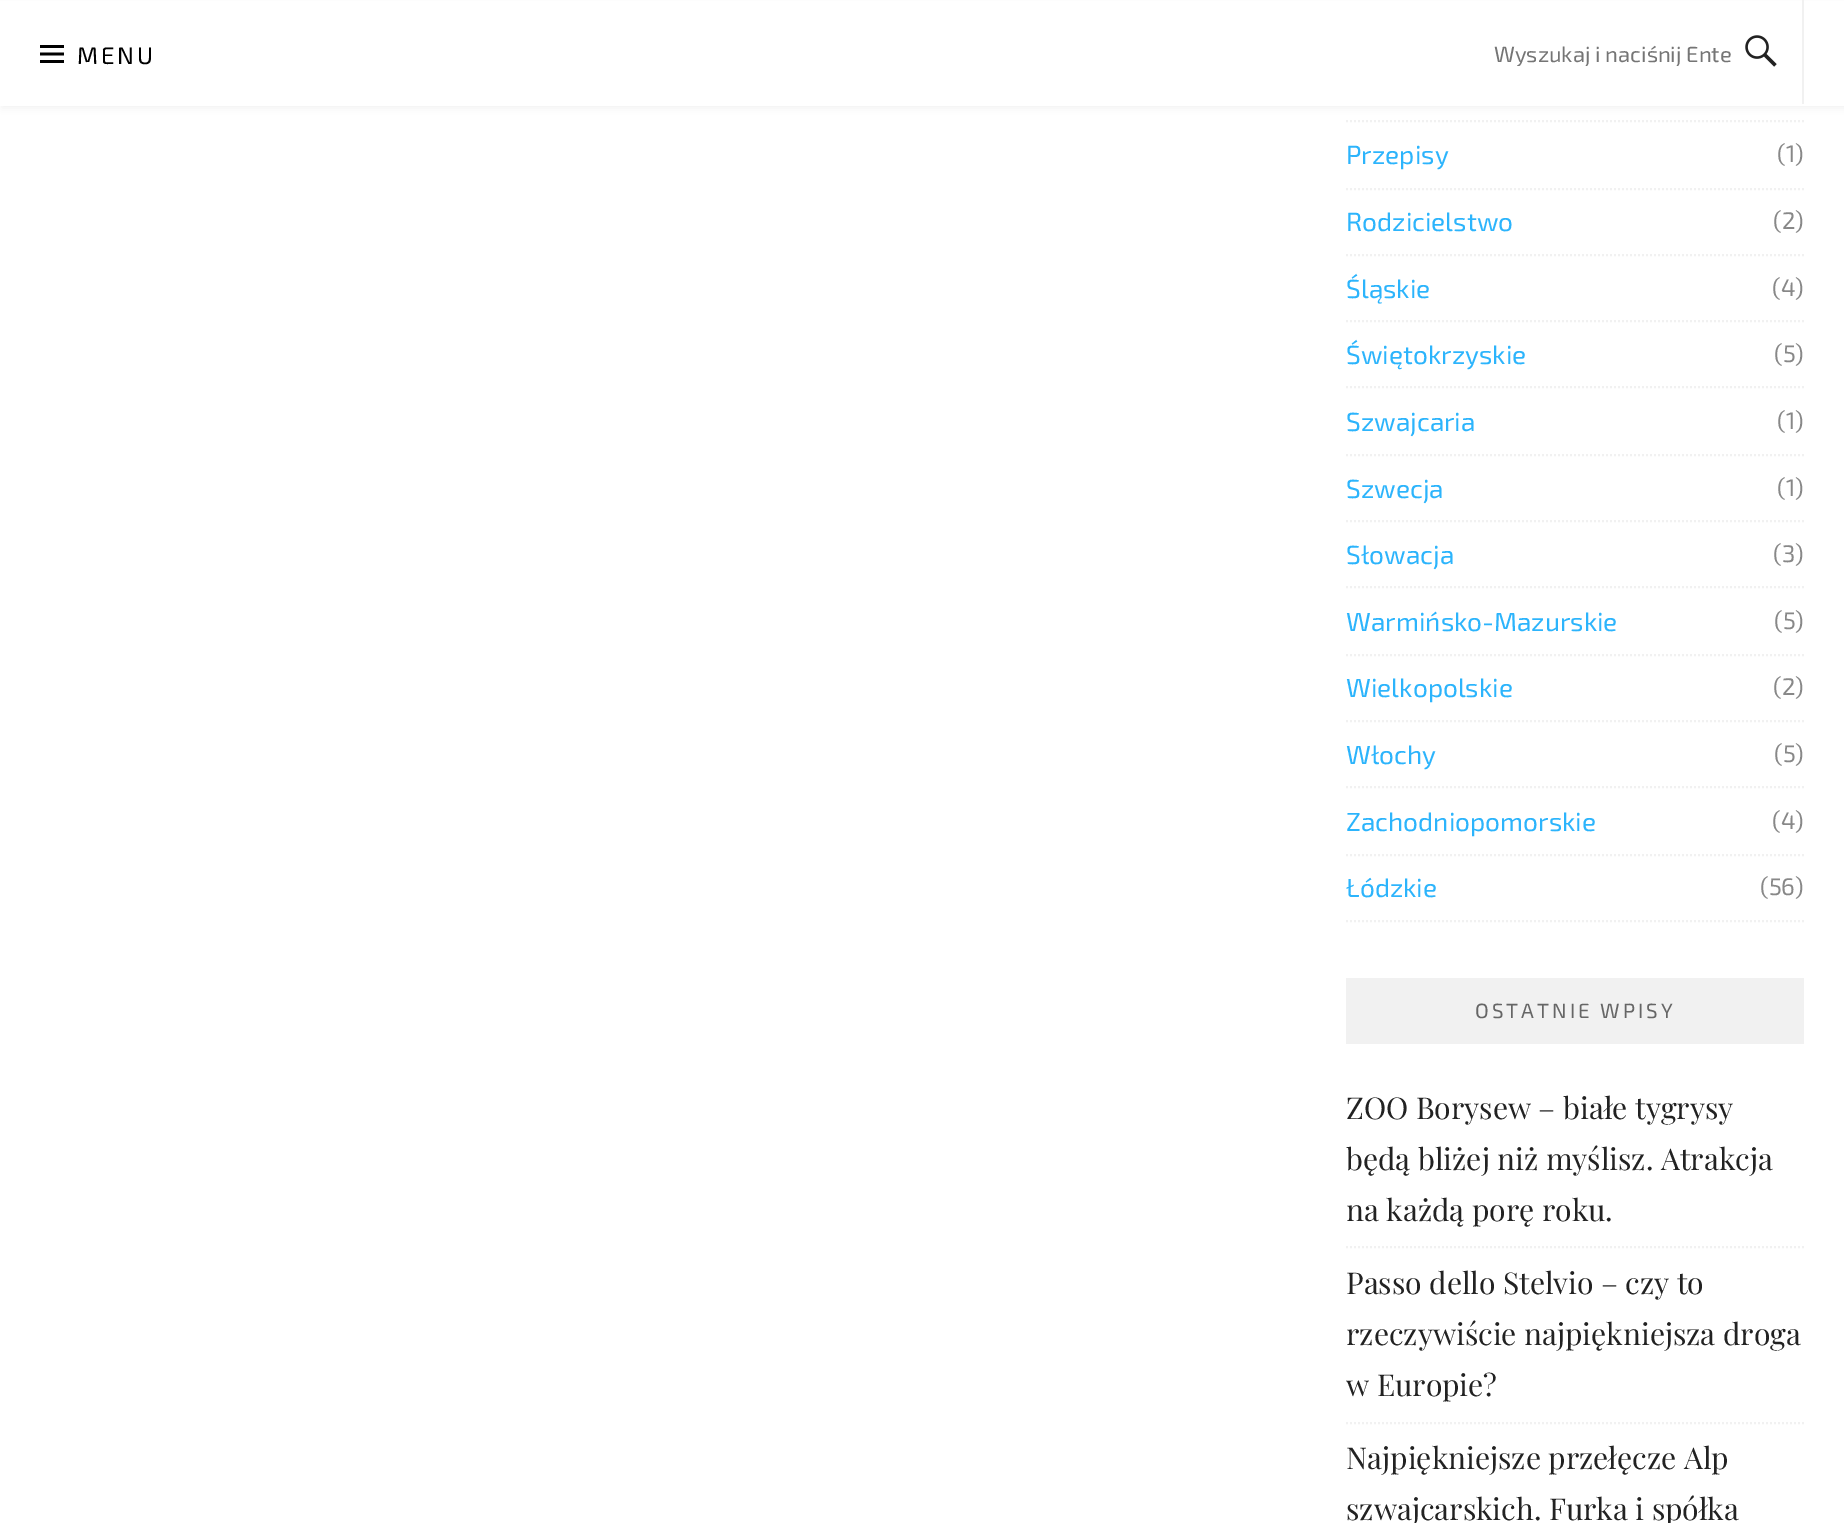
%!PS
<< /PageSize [1844 1523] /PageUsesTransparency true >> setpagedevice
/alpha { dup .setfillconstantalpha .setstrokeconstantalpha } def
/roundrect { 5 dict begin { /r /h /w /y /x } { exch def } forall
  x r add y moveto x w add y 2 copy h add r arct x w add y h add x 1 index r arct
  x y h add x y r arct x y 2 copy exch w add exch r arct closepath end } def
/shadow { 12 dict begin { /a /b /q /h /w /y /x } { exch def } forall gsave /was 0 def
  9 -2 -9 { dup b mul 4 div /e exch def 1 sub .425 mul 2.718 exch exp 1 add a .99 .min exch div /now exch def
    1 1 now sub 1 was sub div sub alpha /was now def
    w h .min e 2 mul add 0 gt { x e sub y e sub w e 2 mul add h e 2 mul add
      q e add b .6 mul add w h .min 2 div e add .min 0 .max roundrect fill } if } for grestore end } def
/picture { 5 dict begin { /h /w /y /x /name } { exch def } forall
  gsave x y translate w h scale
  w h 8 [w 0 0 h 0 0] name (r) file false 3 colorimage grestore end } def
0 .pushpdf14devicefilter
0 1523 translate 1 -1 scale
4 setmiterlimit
1 setgray
0 0 1844 1523 rectfill
0.945 setgray
2 setlinewidth
[2 2] 0 setdash
newpath 1346 121 moveto 1804 121 lineto stroke
0 setgray
2 4 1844 104 0 4 0.05 shadow
1 setgray
0 1 1844 105 rectfill
(img1.rgb) 40 45 24 18 picture
/Exo2-Regular [24 0 0 -24 0 0] selectfont
0 setgray
77 64 moveto 3 0 (MENU) ashow
0.945 setgray
1802 0 2 104 rectfill
gsave
1494 40 240 26 rectclip
/Exo2-Regular [22 0 0 -22 0 0] selectfont
0.459 setgray
1494 62 moveto (Wyszukaj i naciśnij Ente) show
grestore
(img2.rgb) 1745 35 32 32 picture
newpath 1346 189 moveto 1804 189 lineto stroke
/Exo2-Regular [26.25 0 0 -26.25 0 0] selectfont
0.173 0.706 0.988 setrgbcolor
1346 164 moveto (Przepisy) show
/Exo2-Regular [24 0 0 -24 0 0] selectfont
0.533 setgray
1777 162 moveto (\(1\)) show
0.945 setgray
newpath 1346 255 moveto 1804 255 lineto stroke
/Exo2-Regular [26.25 0 0 -26.25 0 0] selectfont
0.173 0.706 0.988 setrgbcolor
1346 231 moveto (Rodzicielstwo) show
/Exo2-Regular [24 0 0 -24 0 0] selectfont
0.533 setgray
1773 229 moveto (\(2\)) show
0.945 setgray
newpath 1346 321 moveto 1804 321 lineto stroke
/Exo2-Regular [26.25 0 0 -26.25 0 0] selectfont
0.173 0.706 0.988 setrgbcolor
1346 298 moveto (Śląskie) show
/Exo2-Regular [24 0 0 -24 0 0] selectfont
0.533 setgray
1772 296 moveto (\(4\)) show
0.945 setgray
newpath 1346 387 moveto 1804 387 lineto stroke
/Exo2-Regular [26.25 0 0 -26.25 0 0] selectfont
0.173 0.706 0.988 setrgbcolor
1346 364 moveto (Świętokrzyskie) show
/Exo2-Regular [24 0 0 -24 0 0] selectfont
0.533 setgray
1774 362 moveto (\(5\)) show
0.945 setgray
newpath 1346 455 moveto 1804 455 lineto stroke
/Exo2-Regular [26.25 0 0 -26.25 0 0] selectfont
0.173 0.706 0.988 setrgbcolor
1346 431 moveto (Szwajcaria) show
/Exo2-Regular [24 0 0 -24 0 0] selectfont
0.533 setgray
1777 429 moveto (\(1\)) show
0.945 setgray
newpath 1346 521 moveto 1804 521 lineto stroke
/Exo2-Regular [26.25 0 0 -26.25 0 0] selectfont
0.173 0.706 0.988 setrgbcolor
1346 498 moveto (Szwecja) show
/Exo2-Regular [24 0 0 -24 0 0] selectfont
0.533 setgray
1777 496 moveto (\(1\)) show
0.945 setgray
newpath 1346 587 moveto 1804 587 lineto stroke
/Exo2-Regular [26.25 0 0 -26.25 0 0] selectfont
0.173 0.706 0.988 setrgbcolor
1346 564 moveto (Słowacja) show
/Exo2-Regular [24 0 0 -24 0 0] selectfont
0.533 setgray
1773 562 moveto (\(3\)) show
0.945 setgray
newpath 1346 655 moveto 1804 655 lineto stroke
/Exo2-Regular [26.25 0 0 -26.25 0 0] selectfont
0.173 0.706 0.988 setrgbcolor
1346 631 moveto (Warmińsko-Mazurskie) show
/Exo2-Regular [24 0 0 -24 0 0] selectfont
0.533 setgray
1774 629 moveto (\(5\)) show
0.945 setgray
newpath 1346 721 moveto 1804 721 lineto stroke
/Exo2-Regular [26.25 0 0 -26.25 0 0] selectfont
0.173 0.706 0.988 setrgbcolor
1346 697 moveto (Wielkopolskie) show
/Exo2-Regular [24 0 0 -24 0 0] selectfont
0.533 setgray
1773 695 moveto (\(2\)) show
0.945 setgray
newpath 1346 787 moveto 1804 787 lineto stroke
/Exo2-Regular [26.25 0 0 -26.25 0 0] selectfont
0.173 0.706 0.988 setrgbcolor
1346 764 moveto (Włochy) show
/Exo2-Regular [24 0 0 -24 0 0] selectfont
0.533 setgray
1774 762 moveto (\(5\)) show
0.945 setgray
newpath 1346 855 moveto 1804 855 lineto stroke
/Exo2-Regular [26.25 0 0 -26.25 0 0] selectfont
0.173 0.706 0.988 setrgbcolor
1346 831 moveto (Zachodniopomorskie) show
/Exo2-Regular [24 0 0 -24 0 0] selectfont
0.533 setgray
1772 829 moveto (\(4\)) show
0.945 setgray
newpath 1346 921 moveto 1804 921 lineto stroke
/Exo2-Regular [26.25 0 0 -26.25 0 0] selectfont
0.173 0.706 0.988 setrgbcolor
1346 897 moveto (Łódzkie) show
/Exo2-Regular [24 0 0 -24 0 0] selectfont
0.533 setgray
1760 895 moveto (\(56\)) show
0.945 setgray
1346 978 458 66 rectfill
/Exo2-Regular [20.6 0 0 -20.6 0 0] selectfont
0.4 setgray
1475 1018 moveto 3 0 (OSTATNIE WPISY) ashow
0.945 setgray
newpath 1346 1247 moveto 1804 1247 lineto stroke
/PlayfairDisplay-Regular [30 0 0 -30 0 0] selectfont
0.133 setgray
1346 1119 moveto (ZOO Borysew – białe tygrysy) show
1346 1170 moveto (będą bliżej niż myślisz. Atrakcja) show
1346 1221 moveto (na każdą porę roku.) show
0.945 setgray
newpath 1346 1423 moveto 1804 1423 lineto stroke
0.133 setgray
1346 1294 moveto (Passo dello Stelvio – czy to) show
1346 1345 moveto (rzeczywiście najpiękniejsza droga) show
1346 1396 moveto (w Europie?) show
1346 1469 moveto (Najpiękniejsze przełęcze Alp) show
1346 1520 moveto (szwajcarskich. Furka i spółka) show
.poppdf14devicefilter showpage
